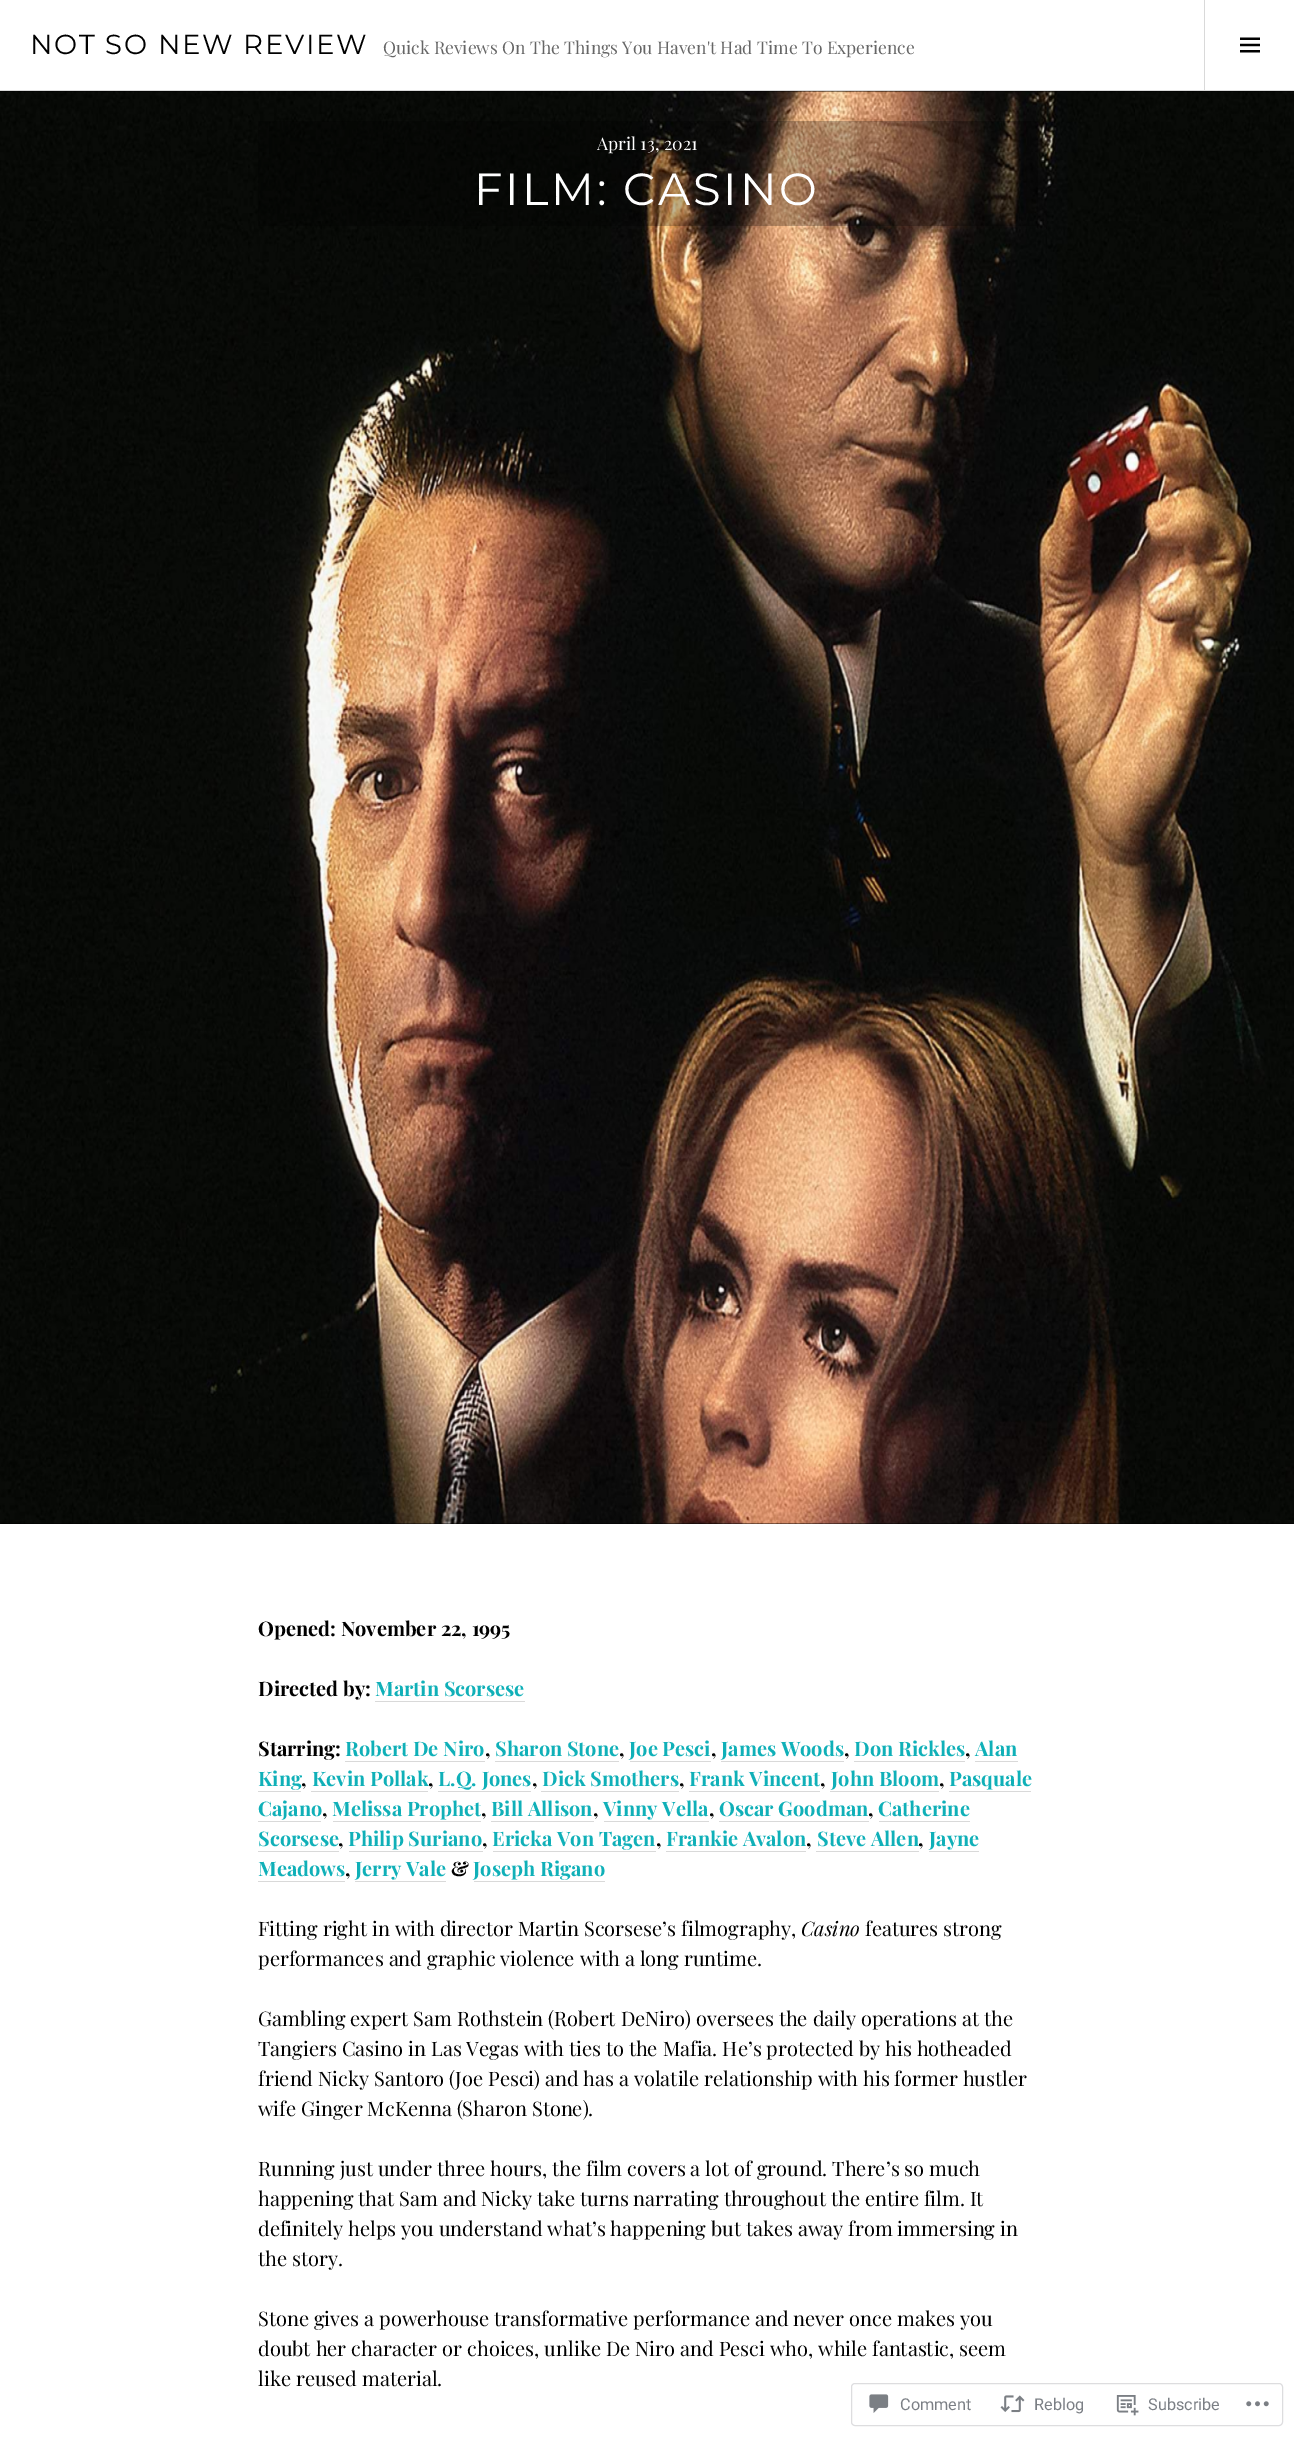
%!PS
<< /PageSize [1294 2438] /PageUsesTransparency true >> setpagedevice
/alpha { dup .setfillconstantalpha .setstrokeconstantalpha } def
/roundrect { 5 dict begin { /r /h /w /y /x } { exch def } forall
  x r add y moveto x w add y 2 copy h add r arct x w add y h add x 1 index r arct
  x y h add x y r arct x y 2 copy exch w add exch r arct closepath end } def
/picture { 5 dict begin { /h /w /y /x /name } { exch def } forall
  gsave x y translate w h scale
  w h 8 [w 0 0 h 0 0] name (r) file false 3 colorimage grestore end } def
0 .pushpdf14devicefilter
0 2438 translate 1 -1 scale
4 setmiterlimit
1 setgray
0 0 1294 2438 rectfill
0.851 setgray
0 90 1294 1 rectfill
/Montserrat-Regular [27.5 0 0 -27.5 0 0] selectfont
0 setgray
30 54 moveto 1.75 0 (NOT SO NEW REVIEW) ashow
/PlayfairDisplay-Regular [17.5 0 0 -17.5 0 0] selectfont
0.4 setgray
383 54 moveto (Quick Reviews On The Things You Haven't Had Time To Experience) show
0.851 setgray
1204 0 1 90 rectfill
(img1.rgb) 1240 37 20 16 picture
0 setgray
0 91 1294 1433 rectfill
(img2.rgb) 0 91 1294 1433 picture
0.25 alpha
258 121 780 105 rectfill
1 alpha
1 setgray
597 150 moveto (April 13, 2021) show
/Montserrat-Regular [45 0 0 -45 0 0] selectfont
474 205 moveto 2.75 0 (FILM: CASINO) ashow
/PlayfairDisplay-Bold [20 0 0 -20 0 0] selectfont
0 setgray
258 1636 moveto (Opened: November 22, 1995) show
258 1696 moveto (Directed by:) show
0.063 0.69 0.722 setrgbcolor
375 1696 moveto (Martin Scorsese) show
0.851 setgray
375 1701 150 1 rectfill
0 setgray
258 1756 moveto (Starring:) show
0.063 0.69 0.722 setrgbcolor
345 1756 moveto (Robert De Niro) show
0 setgray
485 1756 moveto (,) show
0.851 setgray
345 1761 140 1 rectfill
0.063 0.69 0.722 setrgbcolor
495 1756 moveto (Sharon Stone) show
0 setgray
619 1756 moveto (,) show
0.851 setgray
495 1761 124 1 rectfill
0.063 0.69 0.722 setrgbcolor
629 1756 moveto (Joe Pesci) show
0 setgray
711 1756 moveto (,) show
0.851 setgray
630 1761 81 1 rectfill
0.063 0.69 0.722 setrgbcolor
721 1756 moveto (James Woods) show
0 setgray
844 1756 moveto (,) show
0.851 setgray
721 1761 123 1 rectfill
0.063 0.69 0.722 setrgbcolor
854 1756 moveto (Don Rickles) show
0 setgray
965 1756 moveto (,) show
0.851 setgray
854 1761 111 1 rectfill
975 1761 43 1 rectfill
0.063 0.69 0.722 setrgbcolor
975 1756 moveto (Alan) show
258 1786 moveto (King) show
0 setgray
301 1786 moveto (,) show
0.851 setgray
258 1791 43 1 rectfill
0.063 0.69 0.722 setrgbcolor
312 1786 moveto (Kevin Pollak) show
0 setgray
428 1786 moveto (,) show
0.851 setgray
311 1791 117 1 rectfill
0.063 0.69 0.722 setrgbcolor
438 1786 moveto (L.Q. Jones) show
0 setgray
532 1786 moveto (,) show
0.851 setgray
438 1791 93 1 rectfill
0.063 0.69 0.722 setrgbcolor
542 1786 moveto (Dick Smothers) show
0 setgray
679 1786 moveto (,) show
0.851 setgray
541 1791 138 1 rectfill
0.063 0.69 0.722 setrgbcolor
689 1786 moveto (Frank Vincent) show
0 setgray
820 1786 moveto (,) show
0.851 setgray
689 1791 131 1 rectfill
0.063 0.69 0.722 setrgbcolor
831 1786 moveto (John Bloom) show
0 setgray
939 1786 moveto (,) show
0.851 setgray
830 1791 109 1 rectfill
949 1791 82 1 rectfill
0.063 0.69 0.722 setrgbcolor
949 1786 moveto (Pasquale) show
258 1816 moveto (Cajano) show
0 setgray
322 1816 moveto (,) show
0.851 setgray
258 1821 63 1 rectfill
0.063 0.69 0.722 setrgbcolor
332 1816 moveto (Melissa Prophet) show
0 setgray
481 1816 moveto (,) show
0.851 setgray
333 1821 148 1 rectfill
0.063 0.69 0.722 setrgbcolor
491 1816 moveto (Bill Allison) show
0 setgray
593 1816 moveto (,) show
0.851 setgray
491 1821 103 1 rectfill
0.063 0.69 0.722 setrgbcolor
603 1816 moveto (Vinny Vella) show
0 setgray
709 1816 moveto (,) show
0.851 setgray
604 1821 105 1 rectfill
0.063 0.69 0.722 setrgbcolor
719 1816 moveto (Oscar Goodman) show
0 setgray
868 1816 moveto (,) show
0.851 setgray
719 1821 150 1 rectfill
879 1821 91 1 rectfill
0.063 0.69 0.722 setrgbcolor
878 1816 moveto (Catherine) show
258 1846 moveto (Scorsese) show
0 setgray
338 1846 moveto (,) show
0.851 setgray
258 1851 81 1 rectfill
0.063 0.69 0.722 setrgbcolor
348 1846 moveto (Philip Suriano) show
0 setgray
482 1846 moveto (,) show
0.851 setgray
349 1851 134 1 rectfill
0.063 0.69 0.722 setrgbcolor
492 1846 moveto (Ericka Von Tagen) show
0 setgray
656 1846 moveto (,) show
0.851 setgray
493 1851 163 1 rectfill
0.063 0.69 0.722 setrgbcolor
666 1846 moveto (Frankie Avalon) show
0 setgray
806 1846 moveto (,) show
0.851 setgray
666 1851 140 1 rectfill
0.063 0.69 0.722 setrgbcolor
817 1846 moveto (Steve Allen) show
0 setgray
918 1846 moveto (,) show
0.851 setgray
816 1851 103 1 rectfill
929 1851 50 1 rectfill
0.063 0.69 0.722 setrgbcolor
929 1846 moveto (Jayne) show
258 1876 moveto (Meadows) show
0 setgray
345 1876 moveto (,) show
0.851 setgray
258 1881 87 1 rectfill
355 1881 91 1 rectfill
0.063 0.69 0.722 setrgbcolor
355 1876 moveto (Jerry Vale) show
0 setgray
451 1876 moveto (&) show
0.063 0.69 0.722 setrgbcolor
473 1876 moveto (Joseph Rigano) show
0.851 setgray
474 1881 131 1 rectfill
/PlayfairDisplay-Regular [20 0 0 -20 0 0] selectfont
0 setgray
258 1936 moveto (Fitting right in with director Martin Scorsese’s filmography,) show
/PlayfairDisplay-Italic [20 0 0 -20 0 0] selectfont
801 1936 moveto (Casino) show
/PlayfairDisplay-Regular [20 0 0 -20 0 0] selectfont
865 1936 moveto (features strong) show
258 1966 moveto (performances and graphic violence with a long runtime.) show
258 2026 moveto (Gambling expert Sam Rothstein \(Robert DeNiro\) oversees the daily operations at the) show
258 2056 moveto (Tangiers Casino in Las Vegas with ties to the Mafia. He’s protected by his hotheaded) show
258 2086 moveto (friend Nicky Santoro \(Joe Pesci\) and has a volatile relationship with his former hustler) show
258 2116 moveto (wife Ginger McKenna \(Sharon Stone\).) show
258 2176 moveto (Running just under three hours, the film covers a lot of ground. There’s so much) show
258 2206 moveto (happening that Sam and Nicky take turns narrating throughout the entire film. It) show
258 2236 moveto (definitely helps you understand what’s happening but takes away from immersing in) show
258 2266 moveto (the story.) show
258 2326 moveto (Stone gives a powerhouse transformative performance and never once makes you) show
258 2356 moveto (doubt her character or choices, unlike De Niro and Pesci who, while fantastic, seem) show
258 2386 moveto (like reused material.) show
0.867 0.867 0.875 setrgbcolor
851.5 2383.5 431 42 3.5 roundrect stroke
(img3.rgb) 869 2394 20 19 picture
/Roboto-Regular [16.25 0 0 -16.25 0 0] selectfont
0.482 0.498 0.522 setrgbcolor
900 2410 moveto (Comment) show
(img4.rgb) 1000 2395 25 18 picture
1034 2410 moveto (Reblog) show
(img5.rgb) 1116 2395 23 21 picture
1148 2410 moveto (Subscribe) show
(img6.rgb) 1246 2401 23 6 picture
.poppdf14devicefilter showpage
